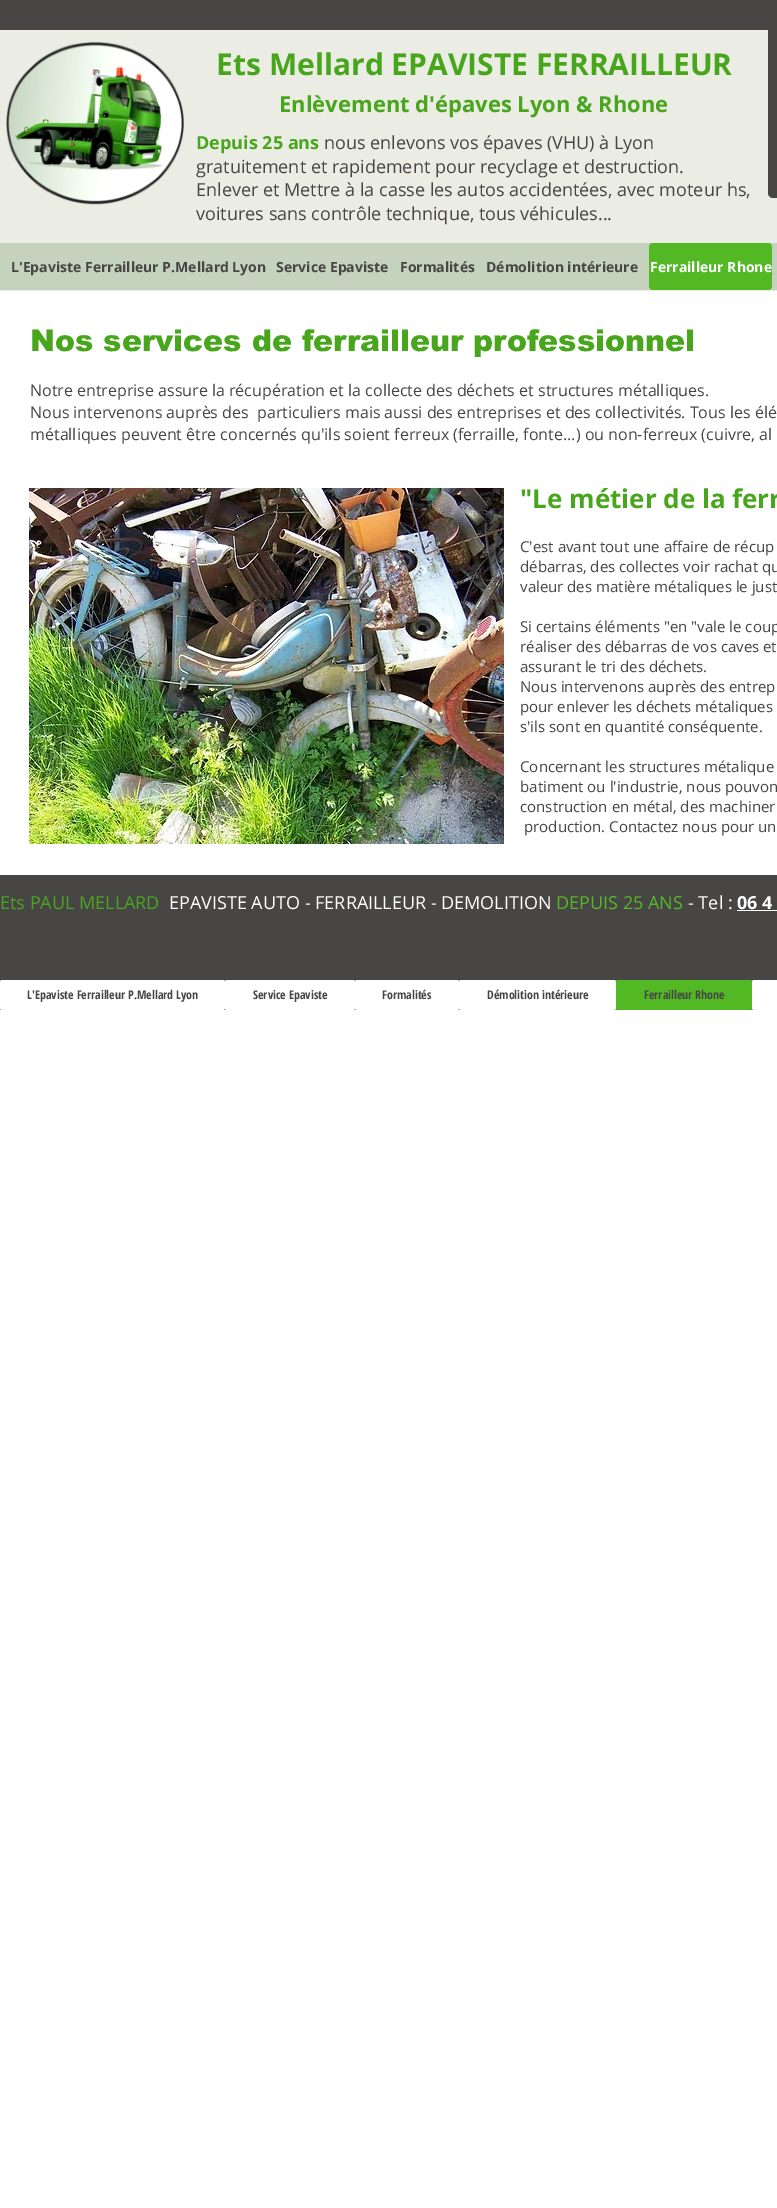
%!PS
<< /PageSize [777 2208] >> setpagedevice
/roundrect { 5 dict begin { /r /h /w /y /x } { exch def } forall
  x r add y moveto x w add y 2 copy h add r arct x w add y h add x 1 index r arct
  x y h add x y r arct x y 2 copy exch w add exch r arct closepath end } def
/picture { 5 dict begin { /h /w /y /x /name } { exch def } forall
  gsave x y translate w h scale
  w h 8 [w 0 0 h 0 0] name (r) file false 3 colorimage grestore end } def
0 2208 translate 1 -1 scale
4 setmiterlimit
1 setgray
0 0 777 2208 rectfill
0.922 0.925 0.894 setrgbcolor
0 30 777 261 rectfill
0.282 0.271 0.271 setrgbcolor
768 13 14 185 5 roundrect fill
0 0 777 30 rectfill
(img1.rgb) 6 41 178 164 picture
/OpenSans-Bold [30 0 0 -30 0 0] selectfont
0.282 0.651 0.114 setrgbcolor
216 75 moveto (Ets Mellard EPAVISTE FERRAILLEUR) show
/OpenSans-Bold [22 0 0 -22 0 0] selectfont
279 112 moveto (Enlèvement d'épaves Lyon & Rhone) show
/OpenSans-Bold [18 0 0 -18 0 0] selectfont
196 149 moveto (Depuis 25 ans) show
/OpenSans-Regular [18 0 0 -18 0 0] selectfont
0.282 0.271 0.271 setrgbcolor
324 149 moveto (nous enlevons vos épaves \(VHU\) à Lyon) show
196 173 moveto (gratuitement et rapidement pour recyclage et destruction.) show
196 196 moveto (Enlever et Mettre à la casse les autos accidentées, avec moteur hs,) show
196 220 moveto (voitures sans contrôle technique, tous véhicules...) show
0.773 0.824 0.741 setrgbcolor
0 243 777 47 rectfill
/OpenSans-Bold [14 0 0 -14 0 0] selectfont
0.282 0.271 0.271 setrgbcolor
11 272 moveto (L'Epaviste Ferrailleur P.Mellard Lyon) show
276 272 moveto (Service Epaviste) show
400 272 moveto (Formalités) show
486 272 moveto (Démolition intérieure) show
0.322 0.725 0.145 setrgbcolor
649 243 123 47 4 roundrect fill
1 setgray
650 272 moveto (Ferrailleur Rhone) show
/arial-Black [30 0 0 -30 0 0] selectfont
0.282 0.651 0.114 setrgbcolor
30 351 moveto (Nos services de ferrailleur professionnel) show
/OpenSans-Regular [16 0 0 -16 0 0] selectfont
0.282 0.271 0.271 setrgbcolor
30 396 moveto (Notre entreprise assure la récupération et la collecte des déchets et structures métalliques.) show
30 418 moveto (Nous intervenons auprès des  particuliers mais aussi des entreprises et des collectivités. Tous les élé) show
30 440 moveto (métalliques peuvent être concernés qu'ils soient ferreux \(ferraille, fonte...\) ou non-ferreux \(cuivre, al) show
(img2.rgb) 29 488 475 356 picture
/OpenSans-Bold [26 0 0 -26 0 0] selectfont
0.282 0.651 0.114 setrgbcolor
520 508 moveto ("Le métier de la ferr) show
/OpenSans-Regular [15 0 0 -15 0 0] selectfont
0.282 0.271 0.271 setrgbcolor
520 552 moveto (C'est avant tout une affaire de récup) show
520 572 moveto (débarras, des collectes voir rachat qu) show
520 592 moveto (valeur des matière métaliques le just) show
520 632 moveto (Si certains éléments "en "vale le coup) show
520 652 moveto (réaliser des débarras de vos caves et) show
520 672 moveto (assurant le tri des déchets.) show
520 692 moveto (Nous intervenons auprès des entrep) show
520 712 moveto (pour enlever les déchets métaliques) show
520 732 moveto (s'ils sont en quantité conséquente.) show
520 772 moveto (Concernant les structures métalique) show
520 792 moveto (batiment ou l'industrie, nous pouvon) show
520 812 moveto (construction en métal, des machiner) show
524 832 moveto (production. Contactez nous pour un) show
0 875 777 135 rectfill
/OpenSans-Regular [18 0 0 -18 0 0] selectfont
0.282 0.651 0.114 setrgbcolor
0 909 moveto (Ets PAUL MELLARD) show
1 setgray
169 909 moveto (EPAVISTE AUTO - FERRAILLEUR - DEMOLITION) show
0.322 0.725 0.145 setrgbcolor
556 909 moveto (DEPUIS 25 ANS) show
1 setgray
688 909 moveto (- Tel :) show
/OpenSans-Bold [18 0 0 -18 0 0] selectfont
737 909 moveto (06 4) show
737 910 40 1 rectfill
0 980 225 30 2 roundrect fill
/OpenSansCondensed-Bold [12 0 0 -12 0 0] selectfont
0.282 0.271 0.271 setrgbcolor
27 999 moveto (L'Epaviste Ferrailleur P.Mellard Lyon) show
1 setgray
225 980 130 30 2 roundrect fill
0.282 0.271 0.271 setrgbcolor
253 999 moveto (Service Epaviste) show
1 setgray
355 980 104 30 2 roundrect fill
0.282 0.271 0.271 setrgbcolor
382 999 moveto (Formalités) show
1 setgray
459 980 157 30 2 roundrect fill
0.282 0.271 0.271 setrgbcolor
487 999 moveto (Démolition intérieure) show
0.322 0.725 0.145 setrgbcolor
616 980 136 30 2 roundrect fill
0.282 0.271 0.271 setrgbcolor
644 999 moveto (Ferrailleur Rhone) show
1 setgray
752 980 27 30 2 roundrect fill
showpage
